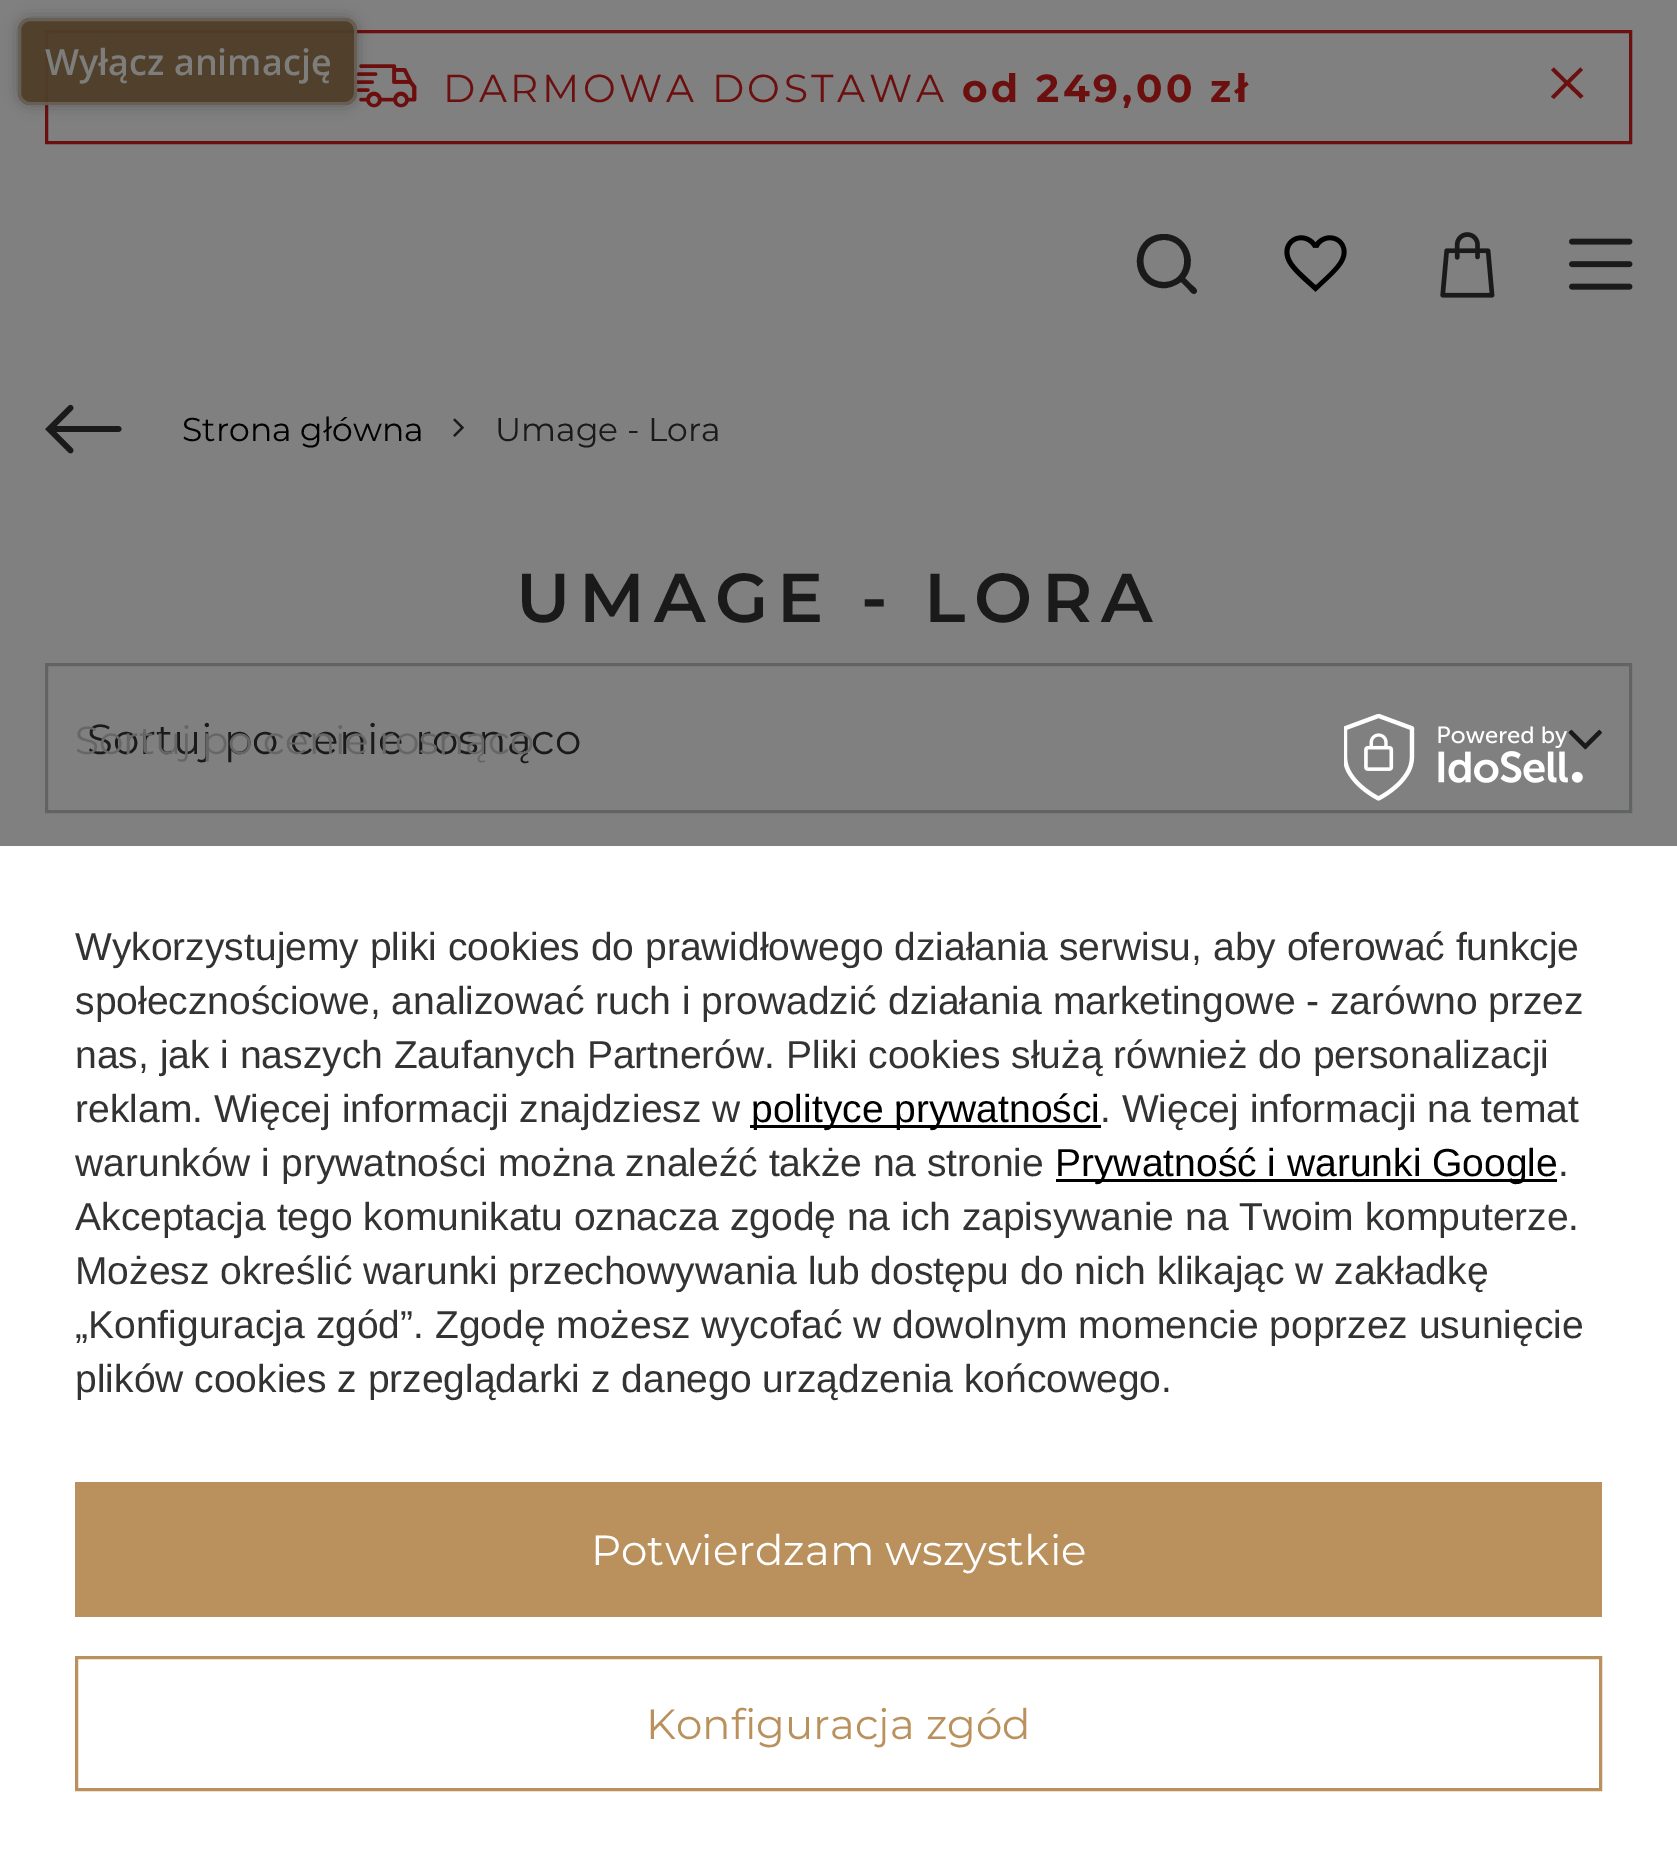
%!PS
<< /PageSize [1677 1864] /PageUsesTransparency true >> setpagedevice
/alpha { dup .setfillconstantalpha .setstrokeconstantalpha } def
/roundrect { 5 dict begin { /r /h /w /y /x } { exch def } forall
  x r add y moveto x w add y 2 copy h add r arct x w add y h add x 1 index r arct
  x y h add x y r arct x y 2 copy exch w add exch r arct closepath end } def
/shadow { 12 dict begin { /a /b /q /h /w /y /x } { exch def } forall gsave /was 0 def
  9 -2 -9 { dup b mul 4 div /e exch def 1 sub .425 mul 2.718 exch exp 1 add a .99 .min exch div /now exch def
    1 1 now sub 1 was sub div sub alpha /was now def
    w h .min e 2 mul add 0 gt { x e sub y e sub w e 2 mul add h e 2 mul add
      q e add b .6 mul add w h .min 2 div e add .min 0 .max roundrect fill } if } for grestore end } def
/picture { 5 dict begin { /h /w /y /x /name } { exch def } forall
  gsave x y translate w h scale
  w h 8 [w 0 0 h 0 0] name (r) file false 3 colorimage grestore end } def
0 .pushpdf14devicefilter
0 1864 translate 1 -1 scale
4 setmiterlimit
0.502 setgray
0 0 1677 1864 rectfill
0.424 0.059 0.059 setrgbcolor
3 setlinewidth
46.5 31.5 1584 111 rectstroke
(img1.rgb) 353 64 64 44 picture
gsave
newpath 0 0 moveto 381 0 lineto 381 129 lineto 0 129 lineto closepath 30 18 moveto 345 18 lineto 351.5 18 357 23.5 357 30 curveto 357 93 lineto 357 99.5 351.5 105 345 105 curveto 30 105 lineto 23.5 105 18 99.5 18 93 curveto 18 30 lineto 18 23.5 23.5 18 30 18 curveto closepath eoclip newpath
0 setgray
18 18 339 87 12 7.5 0.28 shadow
grestore
0.95 alpha
0.306 0.239 0.153 setrgbcolor
18 18 339 87 12 roundrect fill
0.47 alpha
0.502 setgray
19.5 19.5 336 84 10.5 roundrect stroke
/OpenSans-SemiBold [36 0 0 -36 0 0] selectfont
1 alpha
0.49 0.49 0.486 setrgbcolor
45 75 moveto (Wyłącz animację) show
/Montserrat-Regular [39 0 0 -39 0 0] selectfont
0.424 0.059 0.059 setrgbcolor
443 102 moveto 3.6 0 (DARMOWA DOSTAWA) ashow
/Montserrat-Bold [39 0 0 -39 0 0] selectfont
962 102 moveto 3.6 0 (od 249,00 zł) ashow
newpath 1583.5 96 moveto 1580.5 98.5 lineto 1567 85.5 lineto 1554 99 lineto 1551 96.5 lineto 1564.5 83 lineto 1551 70 lineto 1554 67.5 lineto 1567 80.5 lineto 1580.5 67.5 lineto 1583 70 lineto 1570 83 lineto closepath fill
0.102 setgray
newpath 1164 234 moveto 1130 234 1127 284 1161 288 curveto 1168 289 1175 286 1181 282 curveto 1188 289 lineto 1190 291 1193 296 1196 293 curveto 1199 290 1194 287 1192 285 curveto 1185 278 lineto 1199 260 1186 234 1164 234 curveto closepath 1164 240 moveto 1191 240 1191 282 1164 282 curveto 1137 282 1136 240 1164 240 curveto closepath fill
(img2.rgb) 1284 235 63 57 picture
(img3.rgb) 1440 232 55 66 picture
(img4.rgb) 1569 238 64 52 picture
(img5.rgb) 45 404 77 50 picture
/Montserrat-Regular [33 0 0 -33 0 0] selectfont
0 setgray
182 441 moveto (Strona główna) show
(img6.rgb) 453 418 11 19 picture
0.102 setgray
495 441 moveto (Umage - Lora) show
/Montserrat-SemiBold [69 0 0 -69 0 0] selectfont
516 622 moveto 9 0 (UMAGE - LORA) ashow
0.384 0.392 0.392 setrgbcolor
46.5 664.5 1584 147 rectstroke
/Montserrat-Regular [42 0 0 -42 0 0] selectfont
0.102 setgray
87 754 moveto (Sortuj po cenie rosnąco) show
(img7.rgb) 1568 729 34 21 picture
/Montserrat-Regular [39 0 0 -39 0 0] selectfont
0.4 setgray
75 754 moveto (Sortuj po cenie rosnąco) show
1 setgray
0 846 1677 1018 rectfill
(img8.rgb) 1344 714 239 87 picture
/LiberationSans-Regular [39 0 0 -39 0 0] selectfont
0.2 setgray
75 960 moveto (Wykorzystujemy pliki cookies do prawidłowego działania serwisu, aby oferować funkcje) show
75 1014 moveto (społecznościowe, analizować ruch i prowadzić działania marketingowe - zarówno przez) show
75 1068 moveto (nas, jak i naszych Zaufanych Partnerów. Pliki cookies służą również do personalizacji) show
75 1122 moveto (reklam. Więcej informacji znajdziesz w) show
0 setgray
750 1125 351 3 rectfill
751 1122 moveto (polityce prywatności) show
0.2 setgray
1100 1122 moveto (. Więcej informacji na temat) show
75 1176 moveto (warunków i prywatności można znaleźć także na stronie) show
0 setgray
1056 1179 501 3 rectfill
1055 1176 moveto (Prywatność i warunki Google) show
0.2 setgray
1558 1176 moveto (.) show
75 1230 moveto (Akceptacja tego komunikatu oznacza zgodę na ich zapisywanie na Twoim komputerze.) show
75 1284 moveto (Możesz określić warunki przechowywania lub dostępu do nich klikając w zakładkę) show
75 1338 moveto („Konfiguracja zgód”. Zgodę możesz wycofać w dowolnym momencie poprzez usunięcie) show
75 1392 moveto (plików cookies z przeglądarki z danego urządzenia końcowego.) show
0.729 0.569 0.365 setrgbcolor
75 1482 1527 135 rectfill
/Montserrat-Regular [42 0 0 -42 0 0] selectfont
1 setgray
591 1565 moveto (Potwierdzam wszystkie) show
0.729 0.569 0.365 setrgbcolor
76.5 1657.5 1524 132 rectstroke
646 1739 moveto (Konfiguracja zgód) show
.poppdf14devicefilter showpage
